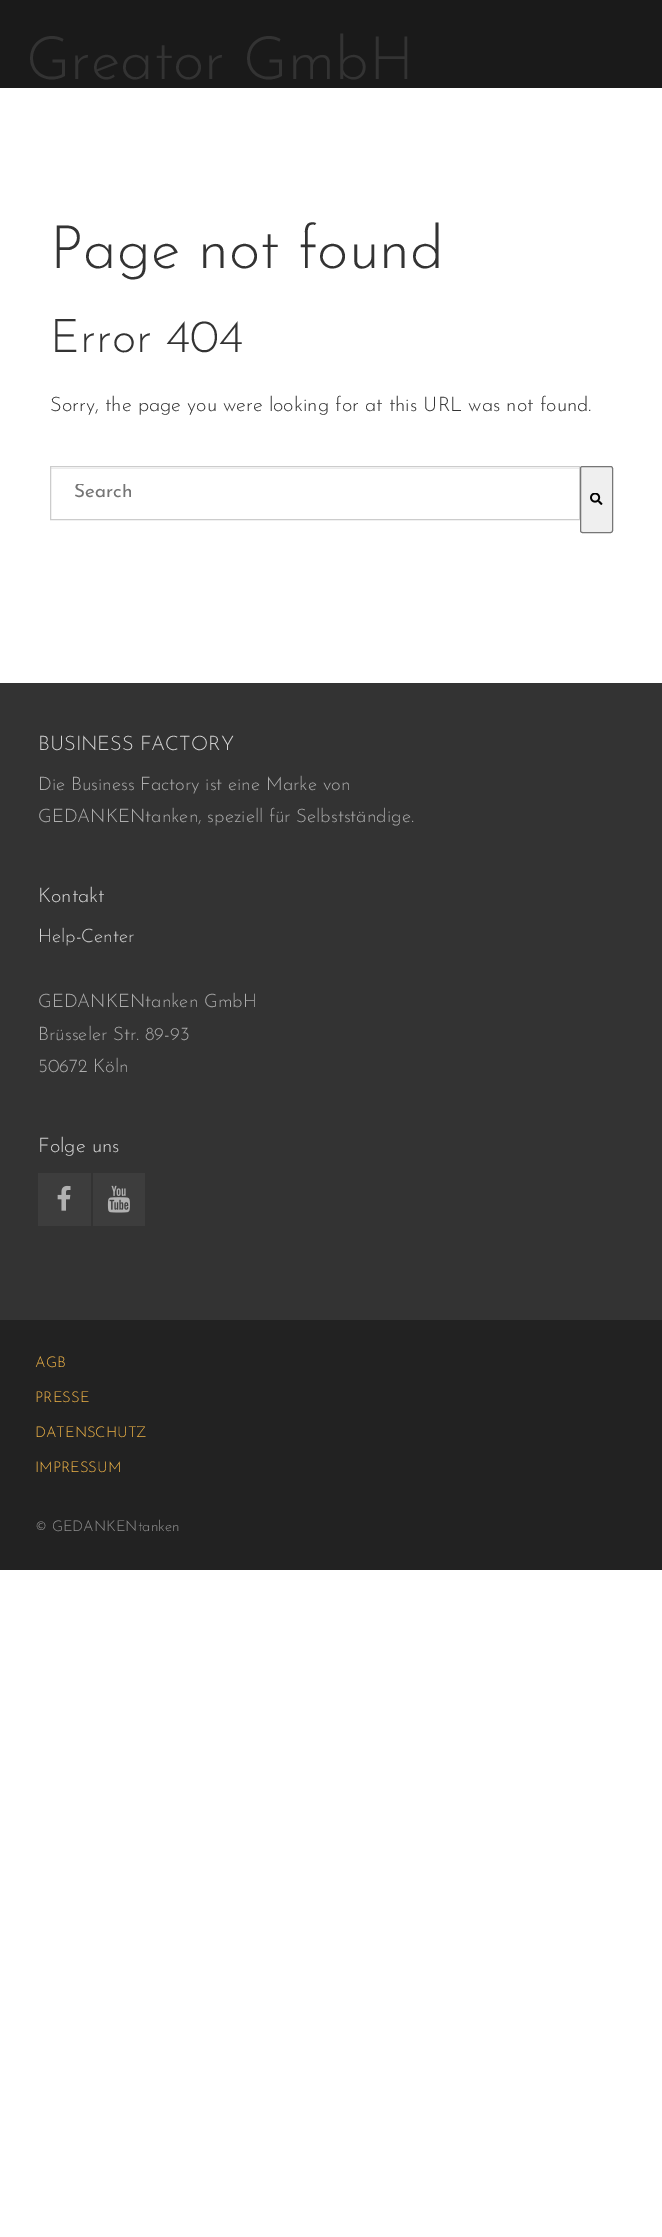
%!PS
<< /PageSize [662 2237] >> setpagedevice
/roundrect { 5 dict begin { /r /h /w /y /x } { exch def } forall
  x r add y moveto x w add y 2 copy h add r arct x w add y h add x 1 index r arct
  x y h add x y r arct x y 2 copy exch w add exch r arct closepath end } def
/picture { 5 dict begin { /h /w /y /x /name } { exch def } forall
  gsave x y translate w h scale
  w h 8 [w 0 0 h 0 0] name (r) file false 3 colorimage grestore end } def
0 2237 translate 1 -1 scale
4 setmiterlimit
1 setgray
0 0 662 2237 rectfill
0.102 setgray
0 0 662 88 rectfill
/JosefinSans-Light [60 0 0 -60 0 0] selectfont
0.2 setgray
26 79 moveto (Greator GmbH) show
50 268 moveto (Page not found) show
/JosefinSans-Light [46.5 0 0 -46.5 0 0] selectfont
50 352 moveto (Error 404) show
/JosefinSans-Light [20 0 0 -20 0 0] selectfont
50 411 moveto (Sorry, the page you were looking for at this URL was not found.) show
0.925 setgray
51 468 528 1 rectfill
0.8 setgray
50.5 466.5 529 53 rectstroke
gsave
74 484 465 19 rectclip
/JosefinSans-Regular [19 0 0 -19 0 0] selectfont
0.459 setgray
74 497 moveto (Search) show
grestore
0.937 setgray
580.5 466.5 32 66 2 roundrect gsave fill grestore
0.463 setgray
stroke
(img1.rgb) 590 493 13 12 picture
0.2 setgray
0 683 662 637 rectfill
0.839 setgray
38 750 moveto (BUSINESS FACTORY) show
/JosefinSans-Light [18.6 0 0 -18.6 0 0] selectfont
0.678 setgray
38 790 moveto (Die Business Factory ist eine Marke von) show
38 822 moveto (GEDANKENtanken, speziell für Selbstständige.) show
/JosefinSans-Light [20 0 0 -20 0 0] selectfont
0.839 setgray
38 902 moveto (Kontakt) show
/JosefinSans-Light [18.6 0 0 -18.6 0 0] selectfont
38 942 moveto (Help-Center) show
0.678 setgray
38 1007 moveto (GEDANKENtanken GmbH) show
38 1040 moveto (Brüsseler Str. 89-93) show
38 1072 moveto (50672 Köln) show
/JosefinSans-Light [20 0 0 -20 0 0] selectfont
0.839 setgray
38 1152 moveto (Folge uns) show
0.239 setgray
38 1173 53 53 rectfill
(img2.rgb) 57 1185 14 26 picture
93 1173 52 53 rectfill
(img3.rgb) 107 1185 23 28 picture
0.133 setgray
0 1320 662 250 rectfill
/JosefinSans-Light [14.9 0 0 -14.9 0 0] selectfont
0.957 0.718 0.282 setrgbcolor
35 1367 moveto (AGB) show
35 1402 moveto (PRESSE) show
35 1437 moveto (DATENSCHUTZ) show
35 1472 moveto (IMPRESSUM) show
0.569 setgray
35 1531 moveto (© GEDANKENtanken) show
showpage
